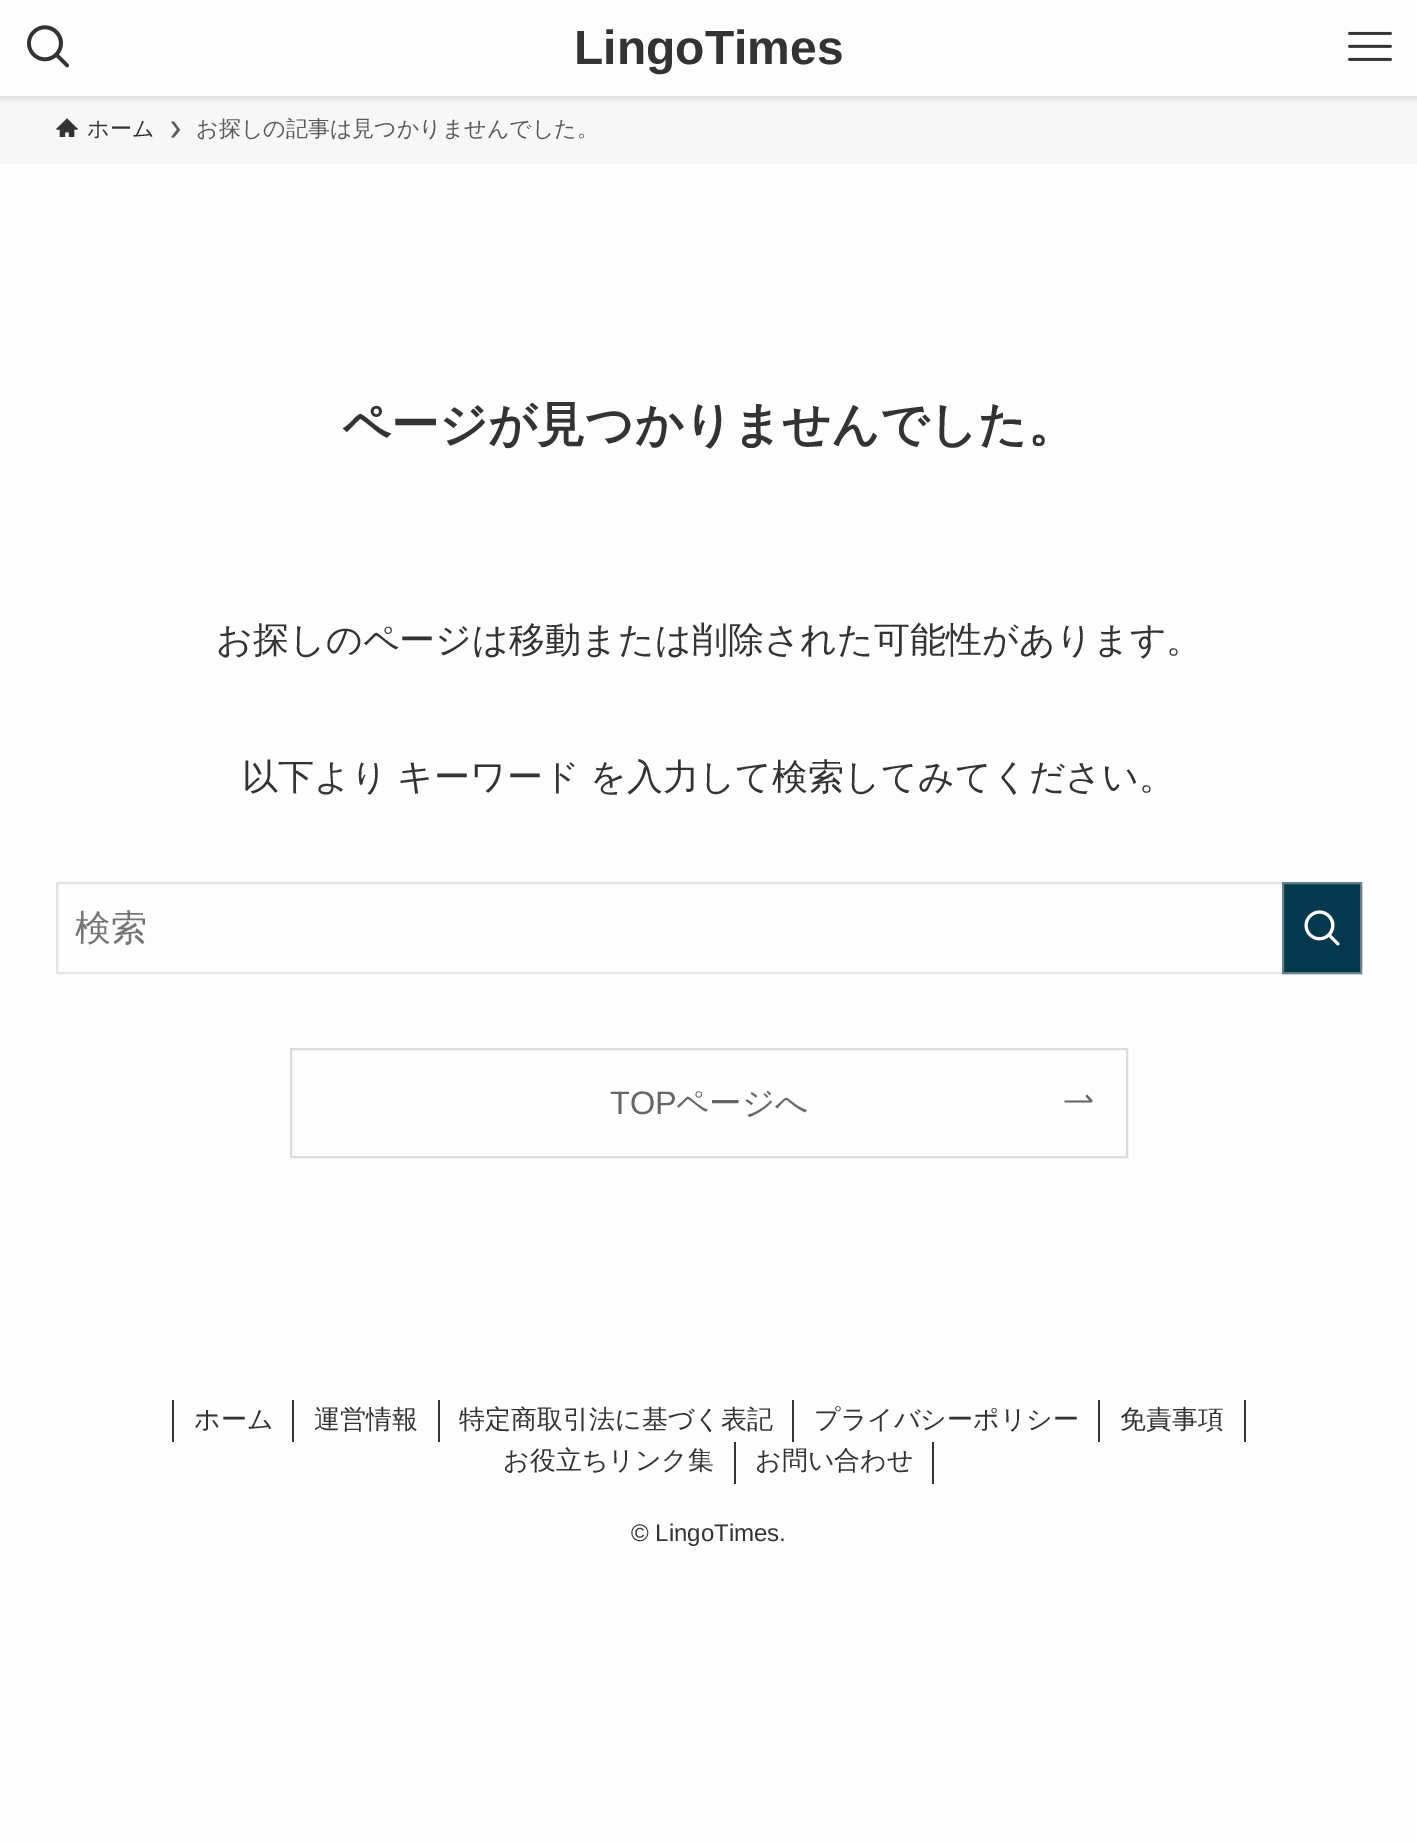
%!PS
<< /PageSize [1417 1843] /PageUsesTransparency true >> setpagedevice
/alpha { dup .setfillconstantalpha .setstrokeconstantalpha } def
/roundrect { 5 dict begin { /r /h /w /y /x } { exch def } forall
  x r add y moveto x w add y 2 copy h add r arct x w add y h add x 1 index r arct
  x y h add x y r arct x y 2 copy exch w add exch r arct closepath end } def
/shadow { 12 dict begin { /a /b /q /h /w /y /x } { exch def } forall gsave /was 0 def
  9 -2 -9 { dup b mul 4 div /e exch def 1 sub .425 mul 2.718 exch exp 1 add a .99 .min exch div /now exch def
    1 1 now sub 1 was sub div sub alpha /was now def
    w h .min e 2 mul add 0 gt { x e sub y e sub w e 2 mul add h e 2 mul add
      q e add b .6 mul add w h .min 2 div e add .min 0 .max roundrect fill } if } for grestore end } def
/picture { 5 dict begin { /h /w /y /x /name } { exch def } forall
  gsave x y translate w h scale
  w h 8 [w 0 0 h 0 0] name (r) file false 3 colorimage grestore end } def
0 .pushpdf14devicefilter
0 1843 translate 1 -1 scale
4 setmiterlimit
0.992 setgray
0 0 1417 1843 rectfill
0.969 setgray
0 96 1417 68 rectfill
gsave
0 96 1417 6 rectclip
0 setgray
0 2 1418 96 0 4 0.12 shadow
grestore
(img1.rgb) 27 25 43 43 picture
/LiberationSans-Bold [48 0 0 -48 0 0] selectfont
0.2 setgray
574 64 moveto (LingoTimes) show
(img2.rgb) 1348 31 44 30 picture
(img3.rgb) 56 118 22 19 picture
/WenQuanYiZenHei-Medium [22 0 0 -22 0 0] selectfont
87 136 moveto (ホーム) show
0.353 setgray
newpath 174 121.5 moveto 171 121.5 lineto 177 129.5 lineto 171 137.5 lineto 174 137.5 lineto 180 130 lineto closepath fill
196 136 moveto (お探しの記事は見つかりませんでした。) show
/WenQuanYiZenHei-Bold [48 0 0 -48 0 0] selectfont
0.2 setgray
342 441 moveto (ページが見つかりませんでした。) show
/WenQuanYiZenHei-Medium [36 0 0 -36 0 0] selectfont
216 652 moveto (お探しのページは移動または削除された可能性があります。) show
242 789 moveto -1 0 32 (以下より キーワード を入力して検索してみてください。) widthshow
0.89 setgray
2 setlinewidth
57 883 1304 90 rectstroke
0.459 setgray
75 940 moveto (検索) show
0.016 0.22 0.298 setrgbcolor
newpath 1283 883 moveto 1361 883 lineto 1361 973 lineto 1283 973 lineto closepath gsave fill grestore
0.4 0.502 0.541 setrgbcolor
stroke
(img4.rgb) 1304 910 36 36 picture
0.863 setgray
291 1049 836 108 rectstroke
/LiberationSans-Regular [32.5 0 0 -32.5 0 0] selectfont
0.4 setgray
610 1114 moveto (TOP) show
/WenQuanYiZenHei-Medium [32.5 0 0 -32.5 0 0] selectfont
676 1114 moveto (ページへ) show
newpath 1091.5 1102.5 moveto 1064.5 1102.5 lineto 1064.5 1100.5 lineto 1089.5 1100.5 lineto 1085.5 1096 lineto 1087 1094.5 lineto 1092.5 1100.5 lineto closepath fill
0.2 setgray
292 1400 2 42 rectfill
172 1400 2 42 rectfill
/WenQuanYiZenHei-Medium [26 0 0 -26 0 0] selectfont
194 1428 moveto (ホーム) show
438 1400 2 42 rectfill
314 1428 moveto (運営情報) show
792 1400 2 42 rectfill
459 1428 moveto (特定商取引法に基づく表記) show
1098 1400 2 42 rectfill
814 1428 moveto (プライバシーポリシー) show
1244 1400 2 42 rectfill
1120 1428 moveto (免責事項) show
734 1442 2 42 rectfill
503 1469 moveto (お役立ちリンク集) show
932 1442 2 42 rectfill
755 1469 moveto (お問い合わせ) show
/LiberationSans-Regular [24 0 0 -24 0 0] selectfont
631 1541 moveto (© LingoTimes.) show
.poppdf14devicefilter showpage
